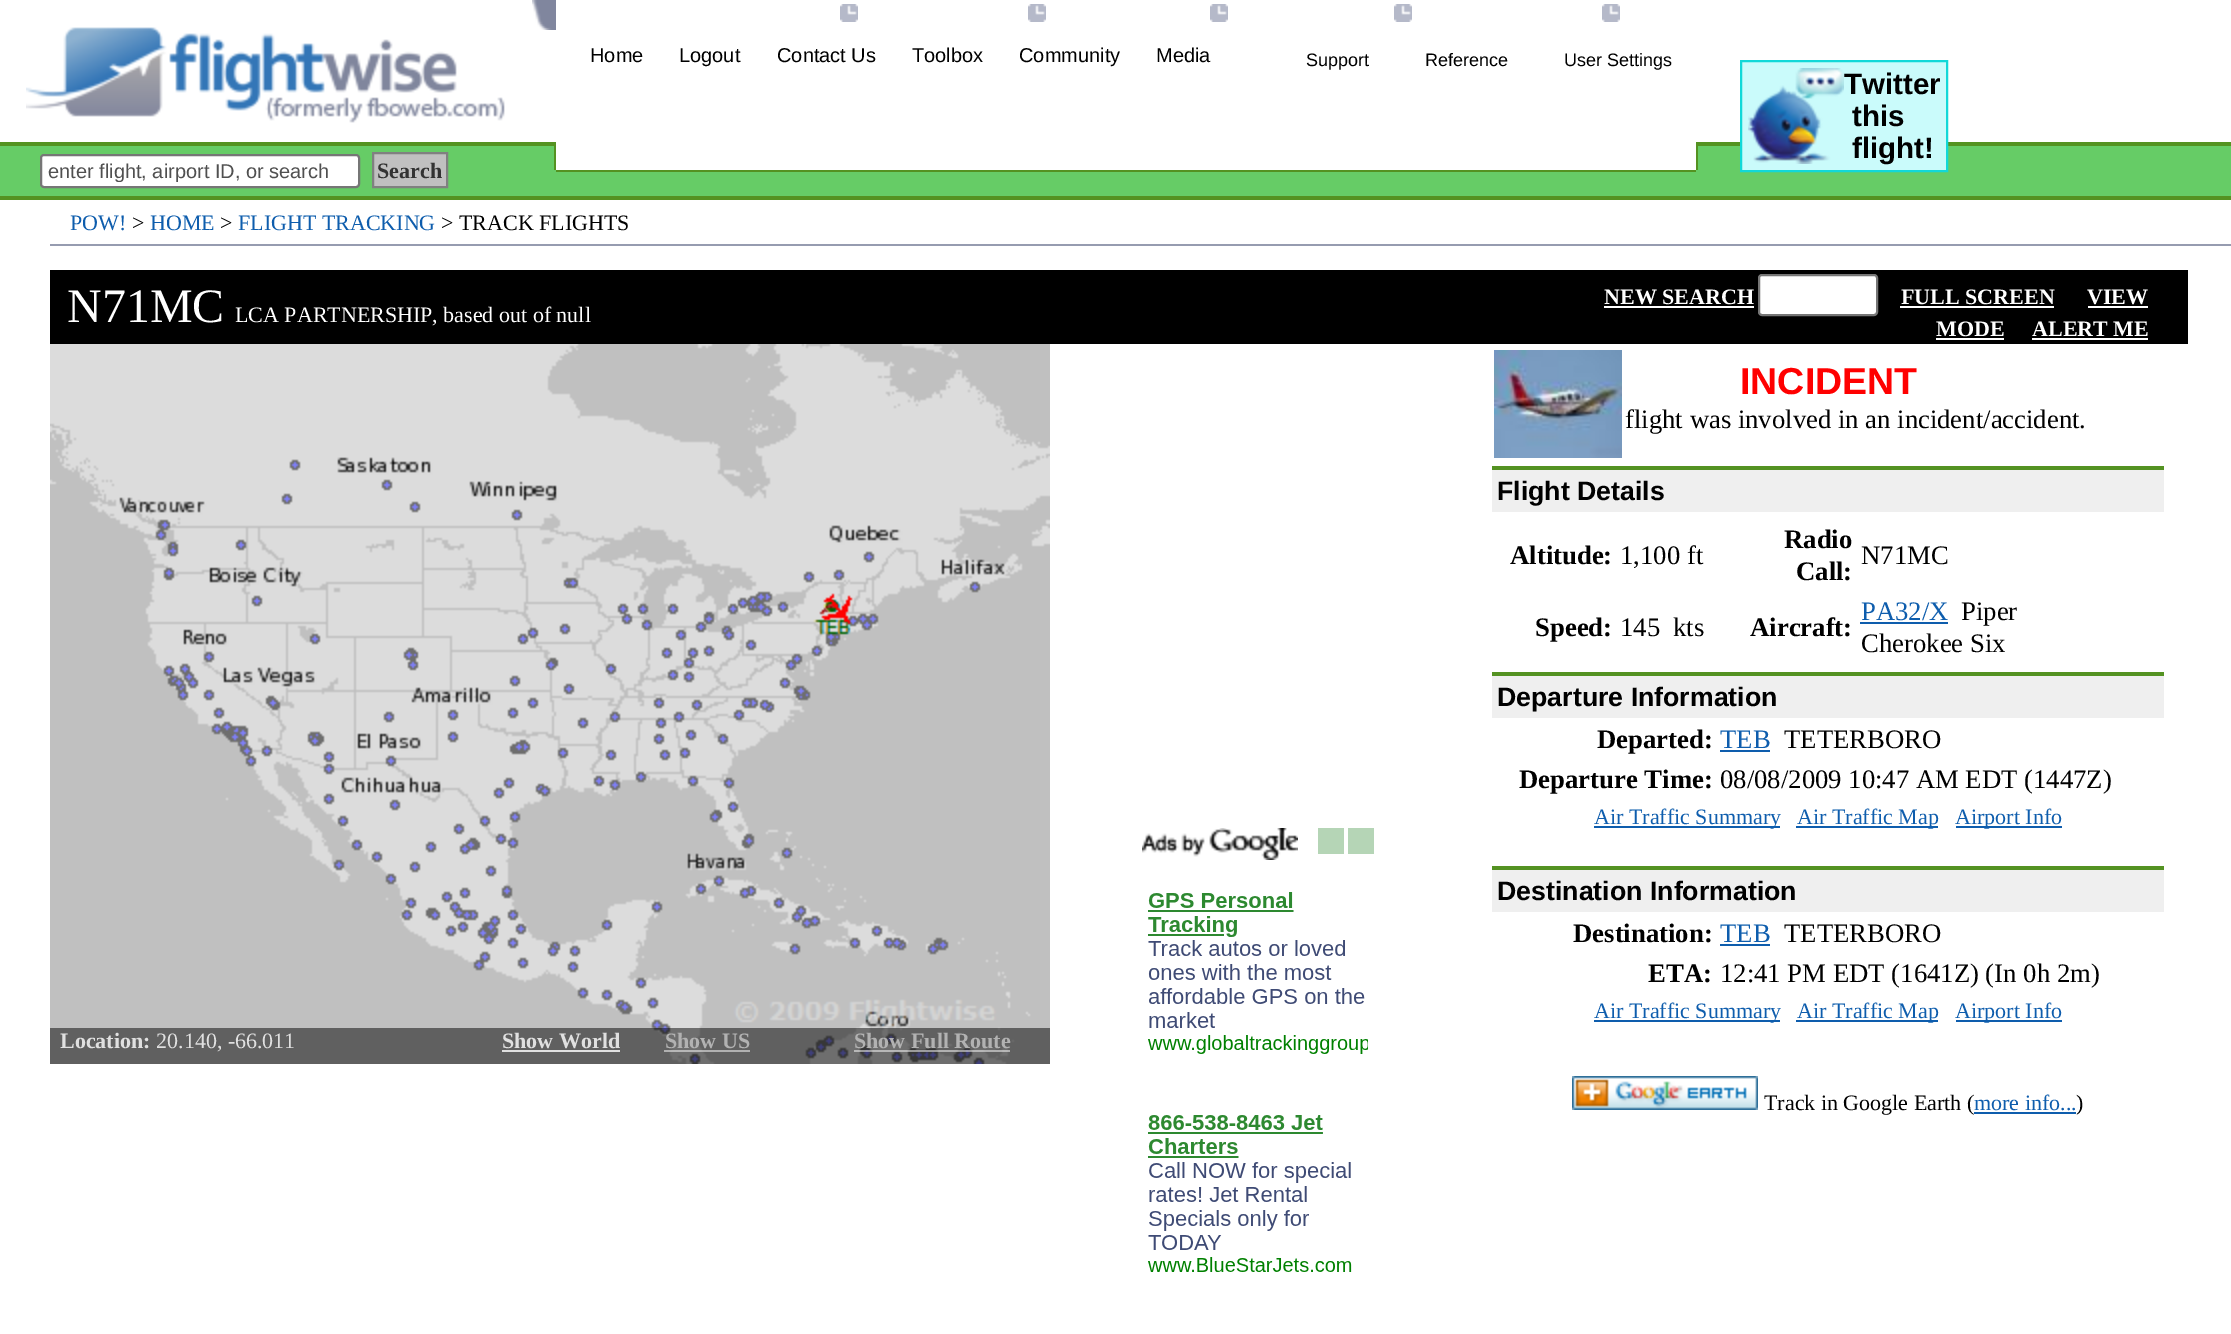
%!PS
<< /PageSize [2231 1334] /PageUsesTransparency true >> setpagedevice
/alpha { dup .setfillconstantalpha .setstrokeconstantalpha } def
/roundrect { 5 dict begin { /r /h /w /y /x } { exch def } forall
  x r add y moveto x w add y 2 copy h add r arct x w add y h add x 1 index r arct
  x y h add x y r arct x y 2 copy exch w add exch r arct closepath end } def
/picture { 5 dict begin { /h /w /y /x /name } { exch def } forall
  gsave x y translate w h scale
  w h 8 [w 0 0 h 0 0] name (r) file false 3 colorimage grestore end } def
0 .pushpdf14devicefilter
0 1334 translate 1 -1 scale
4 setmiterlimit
1 setgray
0 0 2231 1334 rectfill
(img1.rgb) 532 0 24 30 picture
(img2.rgb) 26 27 479 96 picture
(img3.rgb) 840 4 18 18 picture
(img3.rgb) 1028 4 18 18 picture
(img3.rgb) 1210 4 18 18 picture
(img3.rgb) 1394 4 18 18 picture
(img3.rgb) 1602 4 18 18 picture
/LiberationSans-Regular [20 0 0 -20 0 0] selectfont
0 setgray
590 62 moveto (Home) show
679 62 moveto (Logout) show
777 62 moveto (Contact Us) show
912 62 moveto (Toolbox) show
1019 62 moveto (Community) show
1156 62 moveto (Media) show
/LiberationSans-Regular [18 0 0 -18 0 0] selectfont
1306 66 moveto (Support) show
1425 66 moveto (Reference) show
1564 66 moveto (User Settings) show
0.4 0.8 0.4 setrgbcolor
512 146 42 24 rectfill
0.329 0.573 0.129 setrgbcolor
0 142 556 4 rectfill
554 142 2 28 rectfill
0.4 0.8 0.4 setrgbcolor
1698 146 533 24 rectfill
0.329 0.573 0.129 setrgbcolor
1696 142 535 4 rectfill
1696 142 2 28 rectfill
0.4 0.8 0.4 setrgbcolor
0 146 512 50 rectfill
0.329 0.573 0.129 setrgbcolor
0 196 2231 4 rectfill
1 setgray
41 155 318 32 3 roundrect gsave fill grestore
0.463 setgray
2 setlinewidth
stroke
gsave
48 160 304 22 rectclip
/LiberationSans-Regular [20 0 0 -20 0 0] selectfont
0.314 setgray
48 178 moveto (enter flight, airport ID, or search) show
grestore
0.753 setgray
newpath 373 153 moveto 447 153 lineto 447 187 lineto 373 187 lineto closepath gsave fill grestore
0.502 setgray
stroke
/LiberationSerif-Bold [22 0 0 -22 0 0] selectfont
0.2 setgray
377 178 moveto (Search) show
0.4 0.8 0.4 setrgbcolor
512 170 44 26 rectfill
556 172 1140 24 rectfill
0.329 0.573 0.129 setrgbcolor
556 170 1140 2 rectfill
0.4 0.8 0.4 setrgbcolor
1696 170 535 26 rectfill
0.792 0.984 0.984 setrgbcolor
newpath 1741 61 moveto 1947 61 lineto 1947 171 lineto 1741 171 lineto closepath gsave fill grestore
0.071 0.847 0.847 setrgbcolor
stroke
(img4.rgb) 1748 68 96 96 picture
/LiberationSans-Bold [29.5 0 0 -29.5 0 0] selectfont
0 setgray
1844 94 moveto (Twitter) show
1852 126 moveto (this) show
1852 158 moveto (flight!) show
0.588 0.612 0.69 setrgbcolor
50 244 2181 2 rectfill
/LiberationSerif-Regular [22 0 0 -22 0 0] selectfont
0.055 0.365 0.678 setrgbcolor
70 230 moveto (POW!) show
0 setgray
132 230 moveto (>) show
0.055 0.365 0.678 setrgbcolor
150 230 moveto (HOME) show
0 setgray
220 230 moveto (>) show
0.055 0.365 0.678 setrgbcolor
238 230 moveto (FLIGHT TRACKING) show
0 setgray
441 230 moveto (> TRACK FLIGHTS) show
50 270 2138 74 rectfill
/LiberationSerif-Regular [48 0 0 -48 0 0] selectfont
1 setgray
67 322 moveto (N71MC) show
/LiberationSerif-Regular [22 0 0 -22 0 0] selectfont
235 322 moveto (LCA PARTNERSHIP, based out of null) show
/LiberationSerif-Bold [22 0 0 -22 0 0] selectfont
1604 304 moveto (NEW SEARCH) show
1604 306 150 2 rectfill
1759 275 118 40 3 roundrect gsave fill grestore
0.463 setgray
stroke
1 setgray
1901 304 moveto (FULL SCREEN) show
1900 306 154 2 rectfill
2087 304 moveto (VIEW) show
2088 306 60 2 rectfill
1936 336 moveto (MODE) show
1936 338 68 2 rectfill
2032 336 moveto (ALERT ME) show
2032 338 116 2 rectfill
(img5.rgb) 50 344 1000 720 picture
(img6.rgb) 819 593 34 32 picture
0.5 alpha
0 setgray
50 1028 1000 36 rectfill
1 alpha
0.878 setgray
60 1048 moveto (Location:) show
/LiberationSerif-Regular [22 0 0 -22 0 0] selectfont
156 1048 moveto (20.140, -66.011) show
/LiberationSerif-Bold [22 0 0 -22 0 0] selectfont
502 1048 moveto (Show World) show
502 1050 118 2 rectfill
0.698 setgray
665 1048 moveto (Show US) show
0.5 alpha
1 setgray
664 1050 86 2 rectfill
1 alpha
0.698 setgray
854 1048 moveto (Show Full Route) show
0.5 alpha
1 setgray
854 1050 156 2 rectfill
1 alpha
(img7.rgb) 1142 828 232 444 picture
(img8.rgb) 1494 350 128 108 picture
/LiberationSans-Bold [37.5 0 0 -37.5 0 0] selectfont
1 0 0 setrgbcolor
1740 394 moveto (INCIDENT) show
/LiberationSerif-Regular [26.7 0 0 -26.7 0 0] selectfont
0 setgray
1625 428 moveto (flight was involved in an incident/accident.) show
0.937 setgray
1492 470 672 42 rectfill
0.329 0.573 0.133 setrgbcolor
1492 466 672 4 rectfill
/LiberationSans-Bold [26.7 0 0 -26.7 0 0] selectfont
0 setgray
1497 500 moveto (Flight Details) show
/LiberationSerif-Bold [26.7 0 0 -26.7 0 0] selectfont
1510 564 moveto (Altitude:) show
/LiberationSerif-Regular [26.7 0 0 -26.7 0 0] selectfont
1620 564 moveto (1,100 ft) show
/LiberationSerif-Bold [26.7 0 0 -26.7 0 0] selectfont
1784 548 moveto (Radio) show
1796 580 moveto (Call:) show
/LiberationSerif-Regular [26.7 0 0 -26.7 0 0] selectfont
1861 564 moveto (N71MC) show
/LiberationSerif-Bold [26.7 0 0 -26.7 0 0] selectfont
1535 636 moveto (Speed:) show
/LiberationSerif-Regular [26.7 0 0 -26.7 0 0] selectfont
1620 636 moveto (145) show
1673 636 moveto (kts) show
/LiberationSerif-Bold [26.7 0 0 -26.7 0 0] selectfont
1750 636 moveto (Aircraft:) show
/LiberationSerif-Regular [26.7 0 0 -26.7 0 0] selectfont
0.055 0.365 0.678 setrgbcolor
1861 620 moveto (PA32/X) show
1860 622 88 2 rectfill
0 setgray
1961 620 moveto (Piper) show
1861 652 moveto (Cherokee Six) show
0.937 setgray
1492 676 672 42 rectfill
0.329 0.573 0.133 setrgbcolor
1492 672 672 4 rectfill
/LiberationSans-Bold [26.7 0 0 -26.7 0 0] selectfont
0 setgray
1497 706 moveto (Departure Information) show
/LiberationSerif-Bold [26.7 0 0 -26.7 0 0] selectfont
1597 748 moveto (Departed:) show
/LiberationSerif-Regular [26.7 0 0 -26.7 0 0] selectfont
0.055 0.365 0.678 setrgbcolor
1720 748 moveto (TEB) show
1720 750 50 2 rectfill
0 setgray
1784 748 moveto (TETERBORO) show
/LiberationSerif-Bold [26.7 0 0 -26.7 0 0] selectfont
1519 788 moveto (Departure Time:) show
/LiberationSerif-Regular [26.7 0 0 -26.7 0 0] selectfont
1720 788 moveto (08/08/2009 10:47 AM EDT \(1447Z\)) show
0.055 0.365 0.678 setrgbcolor
1594 826 186 2 rectfill
/LiberationSerif-Regular [22 0 0 -22 0 0] selectfont
1594 824 moveto (Air Traffic Summary) show
1796 826 142 2 rectfill
1797 824 moveto (Air Traffic Map) show
1956 826 106 2 rectfill
1955 824 moveto (Airport Info) show
0.937 setgray
1492 870 672 42 rectfill
0.329 0.573 0.133 setrgbcolor
1492 866 672 4 rectfill
/LiberationSans-Bold [26.7 0 0 -26.7 0 0] selectfont
0 setgray
1497 900 moveto (Destination Information) show
/LiberationSerif-Bold [26.7 0 0 -26.7 0 0] selectfont
1573 942 moveto (Destination:) show
/LiberationSerif-Regular [26.7 0 0 -26.7 0 0] selectfont
0.055 0.365 0.678 setrgbcolor
1720 942 moveto (TEB) show
1720 944 50 2 rectfill
0 setgray
1784 942 moveto (TETERBORO) show
/LiberationSerif-Bold [26.7 0 0 -26.7 0 0] selectfont
1648 982 moveto (ETA:) show
/LiberationSerif-Regular [26.7 0 0 -26.7 0 0] selectfont
1720 982 moveto (12:41 PM EDT \(1641Z\) \(In 0h 2m\)) show
0.055 0.365 0.678 setrgbcolor
1594 1020 186 2 rectfill
/LiberationSerif-Regular [22 0 0 -22 0 0] selectfont
1594 1018 moveto (Air Traffic Summary) show
1796 1020 142 2 rectfill
1797 1018 moveto (Air Traffic Map) show
1956 1020 106 2 rectfill
1955 1018 moveto (Airport Info) show
(img9.rgb) 1572 1076 186 34 picture
0 setgray
1764 1110 moveto (Track in Google Earth \() show
0.055 0.365 0.678 setrgbcolor
1974 1110 moveto (more info...) show
1974 1112 102 2 rectfill
0 setgray
2076 1110 moveto (\)) show
.poppdf14devicefilter showpage
